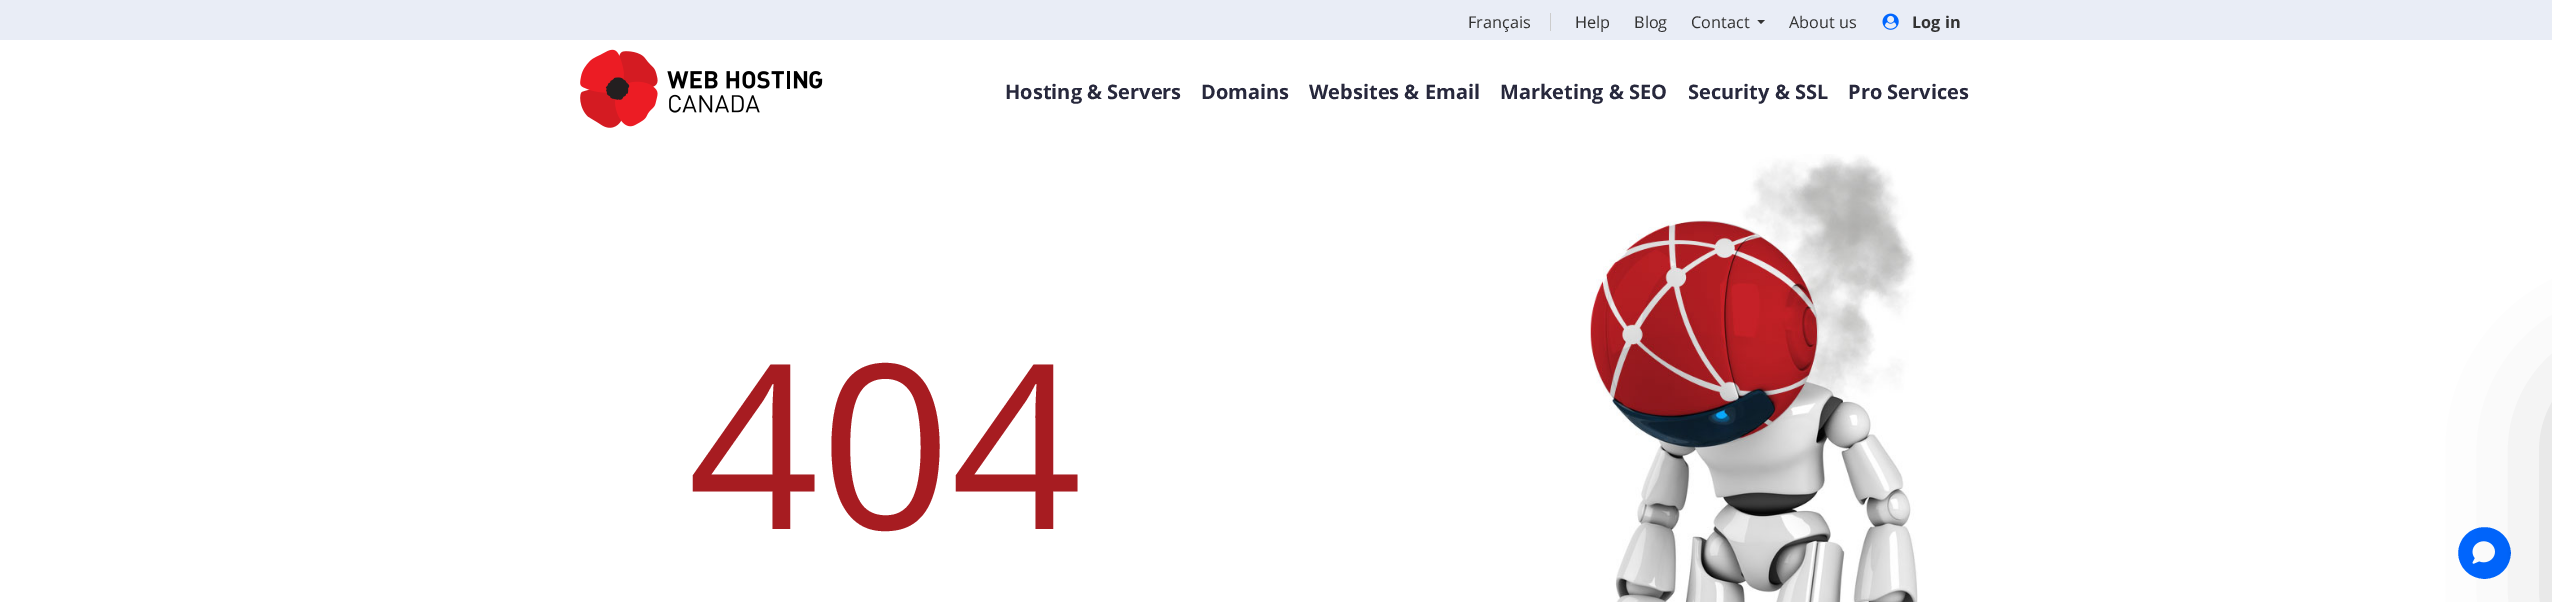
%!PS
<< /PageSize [2552 602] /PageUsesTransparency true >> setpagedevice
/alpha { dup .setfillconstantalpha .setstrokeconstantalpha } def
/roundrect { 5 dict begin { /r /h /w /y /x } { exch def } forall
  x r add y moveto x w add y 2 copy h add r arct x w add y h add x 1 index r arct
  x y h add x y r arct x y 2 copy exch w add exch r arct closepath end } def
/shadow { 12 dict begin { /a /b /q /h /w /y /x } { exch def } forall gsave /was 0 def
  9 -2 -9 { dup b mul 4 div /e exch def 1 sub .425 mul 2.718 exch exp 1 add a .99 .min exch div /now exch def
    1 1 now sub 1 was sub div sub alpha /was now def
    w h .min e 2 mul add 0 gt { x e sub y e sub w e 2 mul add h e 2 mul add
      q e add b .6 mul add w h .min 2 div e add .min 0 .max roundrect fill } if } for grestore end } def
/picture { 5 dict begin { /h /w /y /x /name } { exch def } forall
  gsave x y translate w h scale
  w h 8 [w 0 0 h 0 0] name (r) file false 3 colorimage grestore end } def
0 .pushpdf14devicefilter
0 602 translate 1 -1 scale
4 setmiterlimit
1 setgray
0 0 2552 602 rectfill
0.914 0.929 0.965 setrgbcolor
0 0 2552 40 rectfill
0.8 setgray
1550 13 1 18 rectfill
/OpenSans-Regular [16.25 0 0 -16.25 0 0] selectfont
0.2 setgray
1468 28 moveto (Français) show
1575 28 moveto (Help) show
1634 28 moveto (Blog) show
1691 28 moveto (Contact) show
newpath 1757.5 20 moveto 1765 20 lineto 1761 24 lineto closepath fill
1789 28 moveto (About us) show
(img1.rgb) 1882 13 17 17 picture
/OpenSans-Bold [16.25 0 0 -16.25 0 0] selectfont
1912 28 moveto (Log in) show
(img2.rgb) 580 49 243 79 picture
/OpenSans-Bold [20 0 0 -20 0 0] selectfont
0.153 0.157 0.235 setrgbcolor
1005 99 moveto (Hosting & Servers) show
1201 99 moveto (Domains) show
1309 99 moveto (Websites & Email) show
1500 99 moveto (Marketing & SEO) show
1688 99 moveto (Security & SSL) show
1848 99 moveto (Pro Services) show
/OpenSans-Regular [230 0 0 -230 0 0] selectfont
0.655 0.11 0.129 setrgbcolor
688 529 moveto (404) show
(img3.rgb) 1590 154 328 448 picture
0 0.4 1 setrgbcolor
2457 526 55 54 27 roundrect gsave fill grestore
1 setgray
2 setlinewidth
stroke
(img4.rgb) 2472 541 23 23 picture
0 setgray
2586 400 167 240 13 62.5 0.3 shadow
.poppdf14devicefilter showpage
